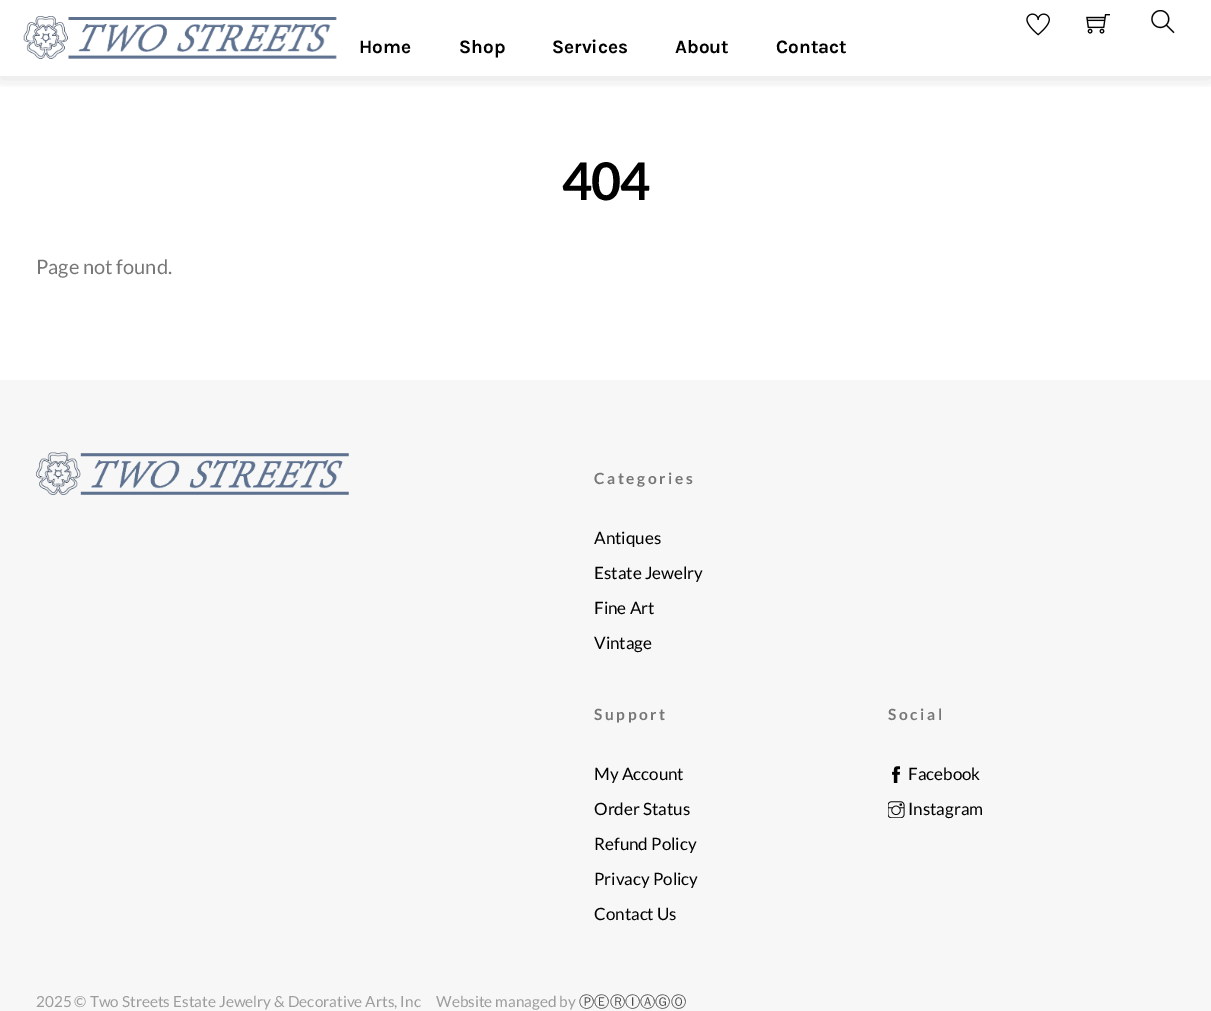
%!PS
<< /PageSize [1211 1011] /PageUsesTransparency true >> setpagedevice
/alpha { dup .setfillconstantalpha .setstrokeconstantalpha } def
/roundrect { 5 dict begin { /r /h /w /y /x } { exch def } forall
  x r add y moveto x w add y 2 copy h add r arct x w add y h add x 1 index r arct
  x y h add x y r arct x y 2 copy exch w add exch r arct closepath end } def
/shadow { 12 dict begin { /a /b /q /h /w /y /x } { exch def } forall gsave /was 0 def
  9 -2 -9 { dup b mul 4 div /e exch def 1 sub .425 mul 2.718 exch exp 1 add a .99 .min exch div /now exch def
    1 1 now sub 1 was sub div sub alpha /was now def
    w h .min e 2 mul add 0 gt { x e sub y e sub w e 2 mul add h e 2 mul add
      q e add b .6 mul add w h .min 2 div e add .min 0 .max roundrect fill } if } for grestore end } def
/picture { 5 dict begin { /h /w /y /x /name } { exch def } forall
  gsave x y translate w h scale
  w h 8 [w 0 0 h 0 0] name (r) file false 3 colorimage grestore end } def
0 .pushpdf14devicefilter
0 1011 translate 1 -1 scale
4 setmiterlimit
1 setgray
0 0 1211 1011 rectfill
gsave
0 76 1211 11 rectclip
0 setgray
0 1 1211 77 0 9.5 0.12 shadow
grestore
(img1.rgb) 23 16 314 43 picture
(img2.rgb) 1026 13 24 23 picture
(img3.rgb) 1086 14 24 20 picture
(img4.rgb) 1151 10 24 24 picture
/Karla-Bold [19 0 0 -19 0 0] selectfont
0 setgray
359 53 moveto (Home) show
459 53 moveto (Shop) show
552 53 moveto (Services) show
675 53 moveto (About) show
776 53 moveto (Contact) show
/Lato-Bold [52 0 0 -52 0 0] selectfont
562 200 moveto -1 0 (404) ashow
/Lato-Regular [20 0 0 -20 0 0] selectfont
0.467 setgray
36 274 moveto (Page not found.) show
0.969 setgray
0 380 1211 631 rectfill
(img5.rgb) 36 452 313 43 picture
/Lato-Bold [15.5 0 0 -15.5 0 0] selectfont
0.467 setgray
594 484 moveto 2.6 0 (Categories) ashow
/Lato-Regular [17 0 0 -17 0 0] selectfont
0 setgray
594 544 moveto (Antiques) show
594 579 moveto (Estate Jewelry) show
594 614 moveto (Fine Art) show
594 649 moveto (Vintage) show
/Lato-Bold [15.5 0 0 -15.5 0 0] selectfont
0.467 setgray
594 720 moveto 2.6 0 (Support) ashow
/Lato-Regular [17 0 0 -17 0 0] selectfont
0 setgray
594 780 moveto (My Account) show
594 815 moveto (Order Status) show
594 850 moveto (Refund Policy) show
594 885 moveto (Privacy Policy) show
594 920 moveto (Contact Us) show
/Lato-Bold [15.5 0 0 -15.5 0 0] selectfont
0.467 setgray
888 720 moveto 2.6 0 (Social) ashow
(img6.rgb) 892 766 8 17 picture
/Lato-Regular [17 0 0 -17 0 0] selectfont
0 setgray
908 780 moveto (Facebook) show
(img7.rgb) 888 801 17 17 picture
908 815 moveto (Instagram) show
/Lato-Regular [15.3 0 0 -15.3 0 0] selectfont
0.616 setgray
36 1007 moveto (2025 © Two Streets Estate Jewelry & Decorative Arts, Inc) show
436 1007 moveto (Website managed by) show
/WenQuanYiZenHei-Medium [15.3 0 0 -15.3 0 0] selectfont
0.29 setgray
579 1007 moveto (ⓅⒺⓇⒾⒶⒼⓄ) show
.poppdf14devicefilter showpage
